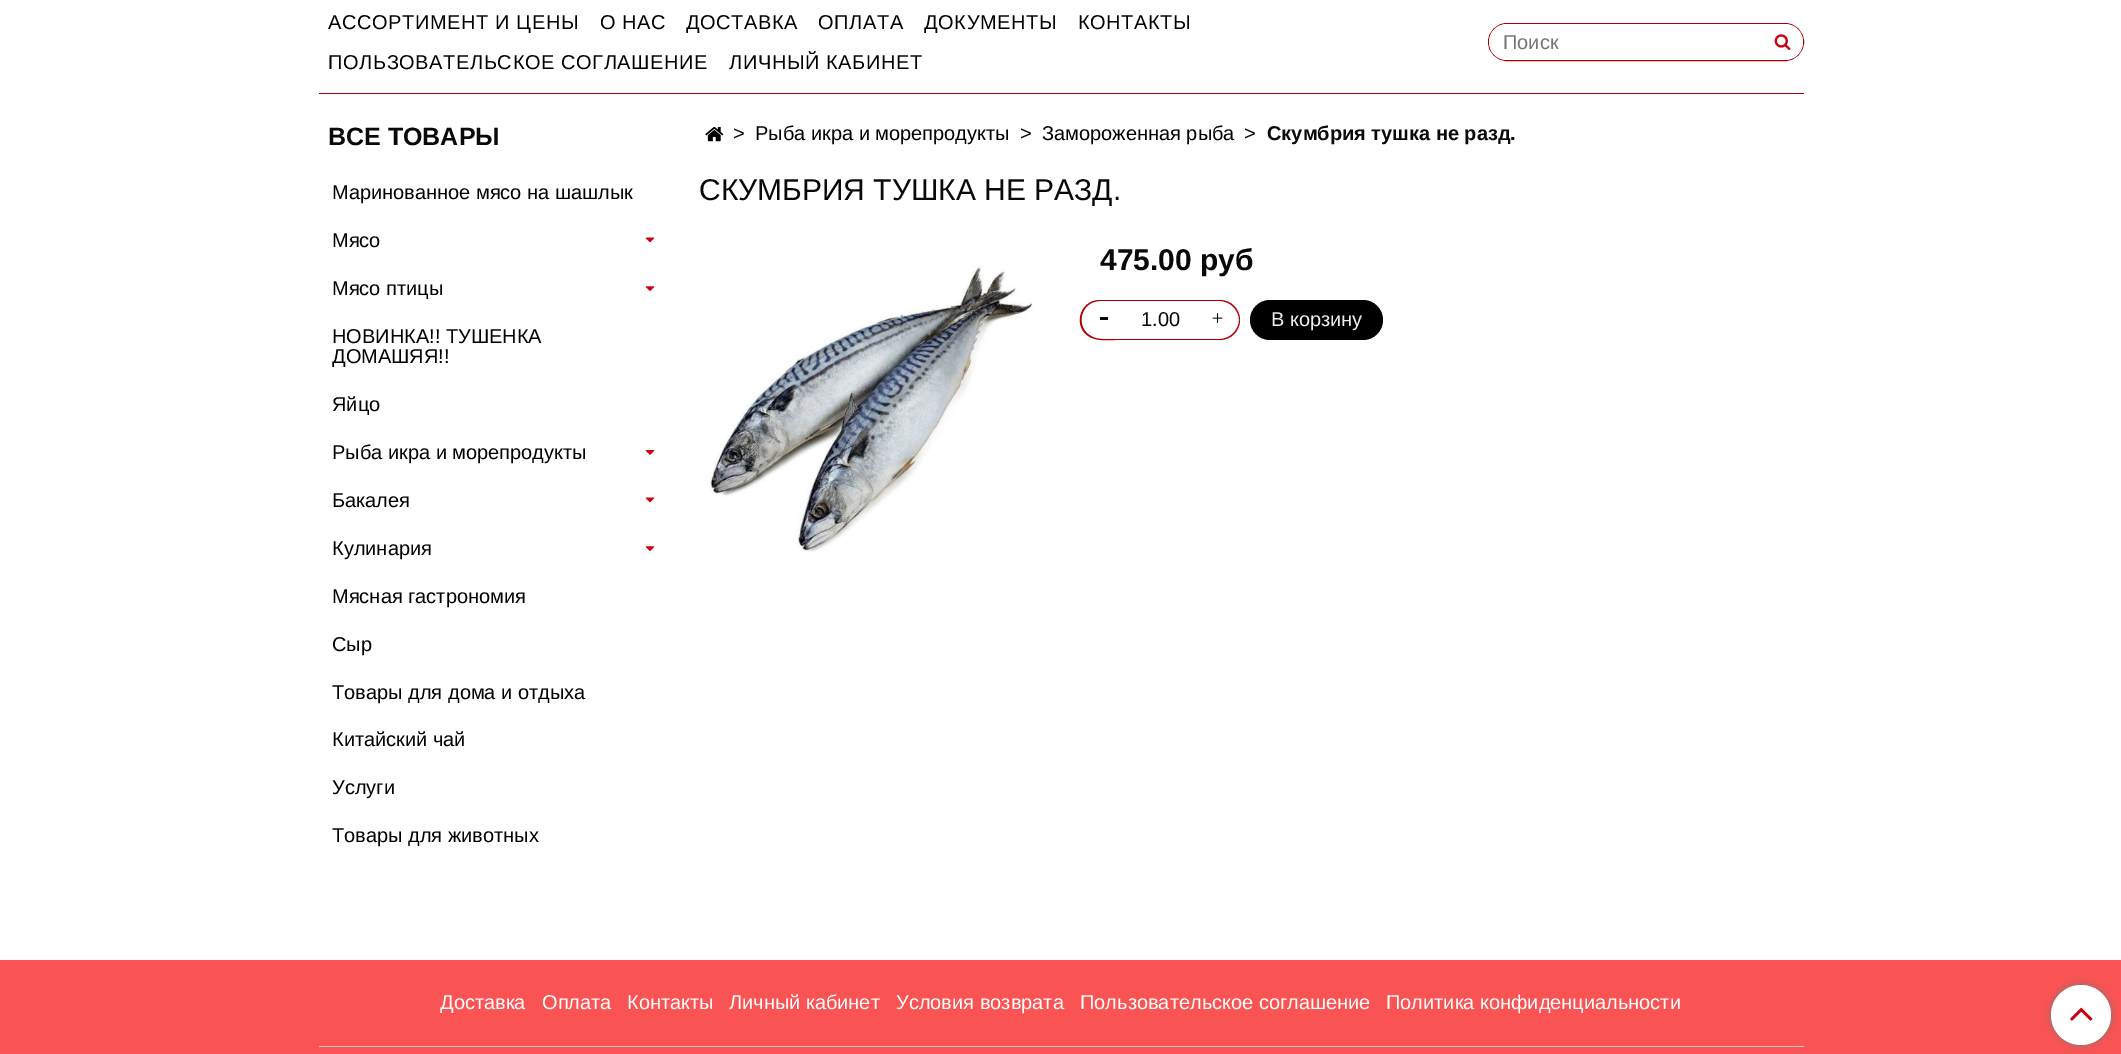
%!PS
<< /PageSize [2121 1054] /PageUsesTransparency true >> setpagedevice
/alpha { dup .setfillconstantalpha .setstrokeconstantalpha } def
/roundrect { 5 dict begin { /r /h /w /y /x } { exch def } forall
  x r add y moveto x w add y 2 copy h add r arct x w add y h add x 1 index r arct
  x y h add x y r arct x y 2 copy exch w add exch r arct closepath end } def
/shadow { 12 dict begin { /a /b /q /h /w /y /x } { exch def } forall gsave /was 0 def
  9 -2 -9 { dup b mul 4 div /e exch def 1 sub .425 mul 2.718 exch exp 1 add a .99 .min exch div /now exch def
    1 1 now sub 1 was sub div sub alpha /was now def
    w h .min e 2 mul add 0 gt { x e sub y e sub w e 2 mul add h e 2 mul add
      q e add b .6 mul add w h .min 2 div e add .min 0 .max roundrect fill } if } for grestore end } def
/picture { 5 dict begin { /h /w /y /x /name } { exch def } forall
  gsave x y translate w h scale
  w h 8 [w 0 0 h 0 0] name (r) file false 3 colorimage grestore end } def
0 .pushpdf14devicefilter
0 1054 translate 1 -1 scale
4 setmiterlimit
1 setgray
0 0 2121 1054 rectfill
0.671 0 0 setrgbcolor
319 93 1485 1 rectfill
/LiberationSans-Regular [20 0 0 -20 0 0] selectfont
0 setgray
328 29 moveto 0.6 0 (АССОРТИМЕНТ И ЦЕНЫ) ashow
600 29 moveto 0.6 0 (О НАС) ashow
686 29 moveto 0.6 0 (ДОСТАВКА) ashow
818 29 moveto 0.6 0 (ОПЛАТА) ashow
924 29 moveto 0.6 0 (ДОКУМЕНТЫ) ashow
1078 29 moveto 0.6 0 (КОНТАКТЫ) ashow
328 69 moveto 0.6 0 (ПОЛЬЗОВАТЕЛЬСКОЕ СОГЛАШЕНИЕ) ashow
729 69 moveto 0.6 0 (ЛИЧНЫЙ КАБИНЕТ) ashow
0.671 0 0 setrgbcolor
1488.5 23.5 315 37 18.5 roundrect stroke
1 setgray
newpath 1507 24 moveto 1763 24 lineto 1763 60 lineto 1507 60 lineto 1497 60 1489 52 1489 42 curveto 1489 32 1497 24 1507 24 curveto closepath fill
0.459 setgray
1503 49 moveto (Поиск) show
1 setgray
newpath 1763 24 moveto 1785 24 lineto 1795 24 1803 32 1803 42 curveto 1803 52 1795 60 1785 60 curveto 1763 60 lineto closepath fill
(img1.rgb) 1774 34 17 16 picture
/LiberationSans-Bold [25 0 0 -25 0 0] selectfont
0.035 setgray
328 145 moveto (ВСЕ ТОВАРЫ) show
/LiberationSans-Regular [20 0 0 -20 0 0] selectfont
0 setgray
332 199 moveto (Маринованное мясо на шашлык) show
332 247 moveto (Мясо) show
(img2.rgb) 645 237 10 6 picture
332 295 moveto (Мясо птицы) show
(img3.rgb) 645 286 10 5 picture
332 343 moveto (НОВИНКА!! ТУШЕНКА) show
332 363 moveto (ДОМАШЯЯ!!) show
332 411 moveto (Яйцо) show
332 459 moveto (Рыба икра и морепродукты) show
(img4.rgb) 645 450 10 5 picture
332 507 moveto (Бакалея) show
(img2.rgb) 645 497 10 6 picture
332 555 moveto (Кулинария) show
(img3.rgb) 645 546 10 5 picture
332 603 moveto (Мясная гастрономия) show
332 651 moveto (Сыр) show
332 699 moveto (Товары для дома и отдыха) show
332 746 moveto (Китайский чай) show
332 794 moveto (Услуги) show
332 842 moveto (Товары для животных) show
(img5.rgb) 705 126 19 16 picture
0.035 setgray
733 140 moveto (>) show
0 setgray
755 140 moveto (Рыба икра и морепродукты) show
0.035 setgray
1020 140 moveto (>) show
0 setgray
1042 140 moveto (Замороженная рыба) show
0.035 setgray
1244 140 moveto (>) show
/LiberationSans-Bold [20 0 0 -20 0 0] selectfont
1267 140 moveto (Скумбрия тушка не разд.) show
/LiberationSans-Regular [30 0 0 -30 0 0] selectfont
699 200 moveto (СКУМБРИЯ ТУШКА НЕ РАЗД.) show
(img6.rgb) 708 266 325 286 picture
/LiberationSans-Bold [30 0 0 -30 0 0] selectfont
1100 270 moveto (475.00 руб) show
0.671 0 0 setrgbcolor
newpath 1100 300 moveto 1115 300 lineto 1115 340 lineto 1108 340 1099 341 1092 338 curveto 1072 330 1078 300 1100 300 curveto closepath 1100 301 moveto 1115 301 lineto 1115 339 lineto 1108 339 1099 340 1093 337 curveto 1074 329 1080 301 1100 301 curveto closepath eofill
0.035 setgray
1100 317 8 3 rectfill
0.671 0 0 setrgbcolor
1115 300 90 1 rectfill
1115 339 90 1 rectfill
/LiberationSans-Regular [20 0 0 -20 0 0] selectfont
0.035 setgray
1141 326 moveto (1.00) show
0.671 0 0 setrgbcolor
newpath 1205 300 moveto 1220 300 lineto 1231 300 1240 309 1240 320 curveto 1240 331 1231 340 1220 340 curveto 1205 340 lineto closepath 1205 301 moveto 1220 301 lineto 1230 301 1239 310 1239 320 curveto 1239 330 1230 339 1220 339 curveto 1205 339 lineto closepath eofill
(img7.rgb) 1212 313 11 11 picture
0 setgray
1250 300 133 40 20 roundrect fill
0.933 setgray
1271 326 moveto (В корзину) show
0.976 0.325 0.325 setrgbcolor
0 960 2121 94 rectfill
0.824 0.804 0.804 setrgbcolor
319 1046 1485 1 rectfill
1 setgray
440 1009 moveto (Доставка) show
542 1009 moveto (Оплата) show
627 1009 moveto (Контакты) show
729 1009 moveto (Личный кабинет) show
896 1009 moveto (Условия возврата) show
1080 1009 moveto (Пользовательское соглашение) show
1386 1009 moveto (Политика конфиденциальности) show
0.467 setgray
2051 985 60 60 30 3 1 shadow
1 setgray
newpath 2081 1015 30 0 360 arc closepath fill
(img8.rgb) 2070 1007 23 14 picture
.poppdf14devicefilter showpage
